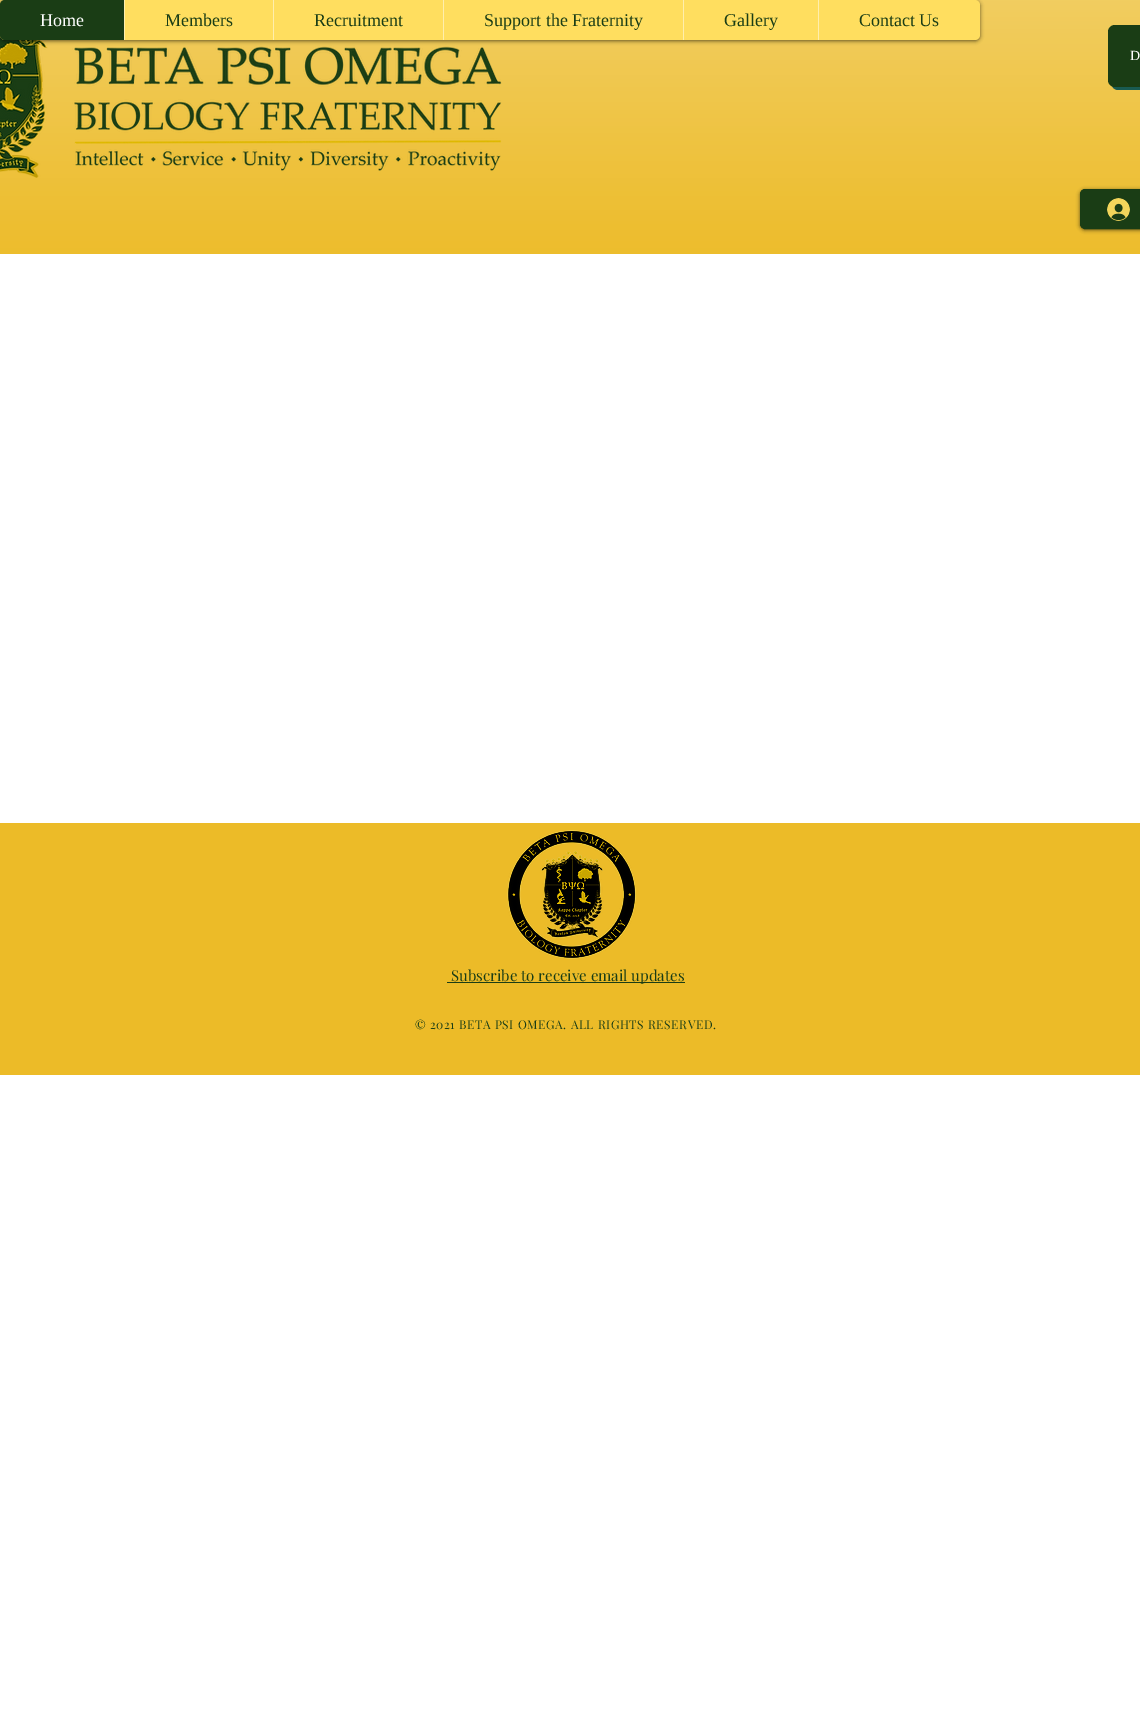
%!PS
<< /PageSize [1140 1720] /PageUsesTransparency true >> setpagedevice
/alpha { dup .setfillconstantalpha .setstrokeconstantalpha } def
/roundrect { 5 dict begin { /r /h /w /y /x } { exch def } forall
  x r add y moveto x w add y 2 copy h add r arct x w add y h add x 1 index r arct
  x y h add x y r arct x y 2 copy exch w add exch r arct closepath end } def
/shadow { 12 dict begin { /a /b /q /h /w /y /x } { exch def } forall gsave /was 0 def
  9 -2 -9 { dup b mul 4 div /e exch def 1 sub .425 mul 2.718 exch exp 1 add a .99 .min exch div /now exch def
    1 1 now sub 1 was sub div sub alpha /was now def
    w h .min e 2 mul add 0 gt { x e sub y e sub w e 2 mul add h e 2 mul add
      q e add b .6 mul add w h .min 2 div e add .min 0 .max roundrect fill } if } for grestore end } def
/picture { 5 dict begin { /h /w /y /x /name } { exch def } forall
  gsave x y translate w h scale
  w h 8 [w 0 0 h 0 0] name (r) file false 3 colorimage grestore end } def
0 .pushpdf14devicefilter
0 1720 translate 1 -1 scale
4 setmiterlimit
1 setgray
0 0 1140 1720 rectfill
0.925 0.733 0.157 setrgbcolor
0 0 1140 254 rectfill
(img1.rgb) 0 0 1140 254 picture
(img2.rgb) 0 35 502 143 picture
0 setgray
0 1 980 40 5 2 0.6 shadow
1 0.871 0.373 setrgbcolor
0 0 980 40 5 roundrect fill
0.102 0.239 0.082 setrgbcolor
newpath 5 0 moveto 124 0 lineto 124 40 lineto 5 40 lineto 2 40 0 38 0 35 curveto 0 5 lineto 0 2 2 0 5 0 curveto closepath fill
/LiberationSerif-Regular [18 0 0 -18 0 0] selectfont
1 setgray
40 26 moveto (Home) show
1 0.933 0.675 setrgbcolor
124 0 1 40 rectfill
0.102 0.239 0.082 setrgbcolor
165 26 moveto (Members) show
1 0.933 0.675 setrgbcolor
273 0 1 40 rectfill
0.102 0.239 0.082 setrgbcolor
314 26 moveto (Recruitment) show
1 0.933 0.675 setrgbcolor
443 0 1 40 rectfill
0.102 0.239 0.082 setrgbcolor
484 26 moveto (Support the Fraternity) show
1 0.933 0.675 setrgbcolor
683 0 1 40 rectfill
0.102 0.239 0.082 setrgbcolor
724 26 moveto (Gallery) show
1 0.933 0.675 setrgbcolor
818 0 1 40 rectfill
0.102 0.239 0.082 setrgbcolor
859 26 moveto (Contact Us) show
0.098 0.357 0.322 setrgbcolor
newpath 1112 86 moveto 1113 88 1115 90 1118 90 curveto 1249 90 lineto 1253 90 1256 87 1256 83 curveto 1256 35 lineto 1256 32 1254 30 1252 29 curveto 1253 32 lineto 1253 80 lineto 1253 84 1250 87 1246 87 curveto 1115 87 lineto closepath fill
0.102 0.239 0.082 setrgbcolor
1108 25 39 62 7 roundrect fill
/LiberationSerif-Regular [14 0 0 -14 0 0] selectfont
1 setgray
1130 60 moveto 1 0 (D) ashow
0 setgray
1080 190 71 40 5 2 0.6 shadow
0.102 0.239 0.082 setrgbcolor
1080.5 189.5 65 39 4.5 roundrect gsave fill grestore
stroke
(img3.rgb) 1107 198 23 23 picture
0.925 0.733 0.157 setrgbcolor
0 823 1140 252 rectfill
(img4.rgb) 507 830 129 129 picture
0.102 0.239 0.082 setrgbcolor
447 982 238 1 rectfill
/PlayfairDisplay-Regular [15 0 0 -15 0 0] selectfont
451 981 moveto (Subscribe to receive email updates) show
/PlayfairDisplay-Regular [12 0 0 -12 0 0] selectfont
415 1029 moveto 0.6 0 (© 2021 BETA PSI OMEGA. ALL RIGHTS RESERVED.) ashow
.poppdf14devicefilter showpage
